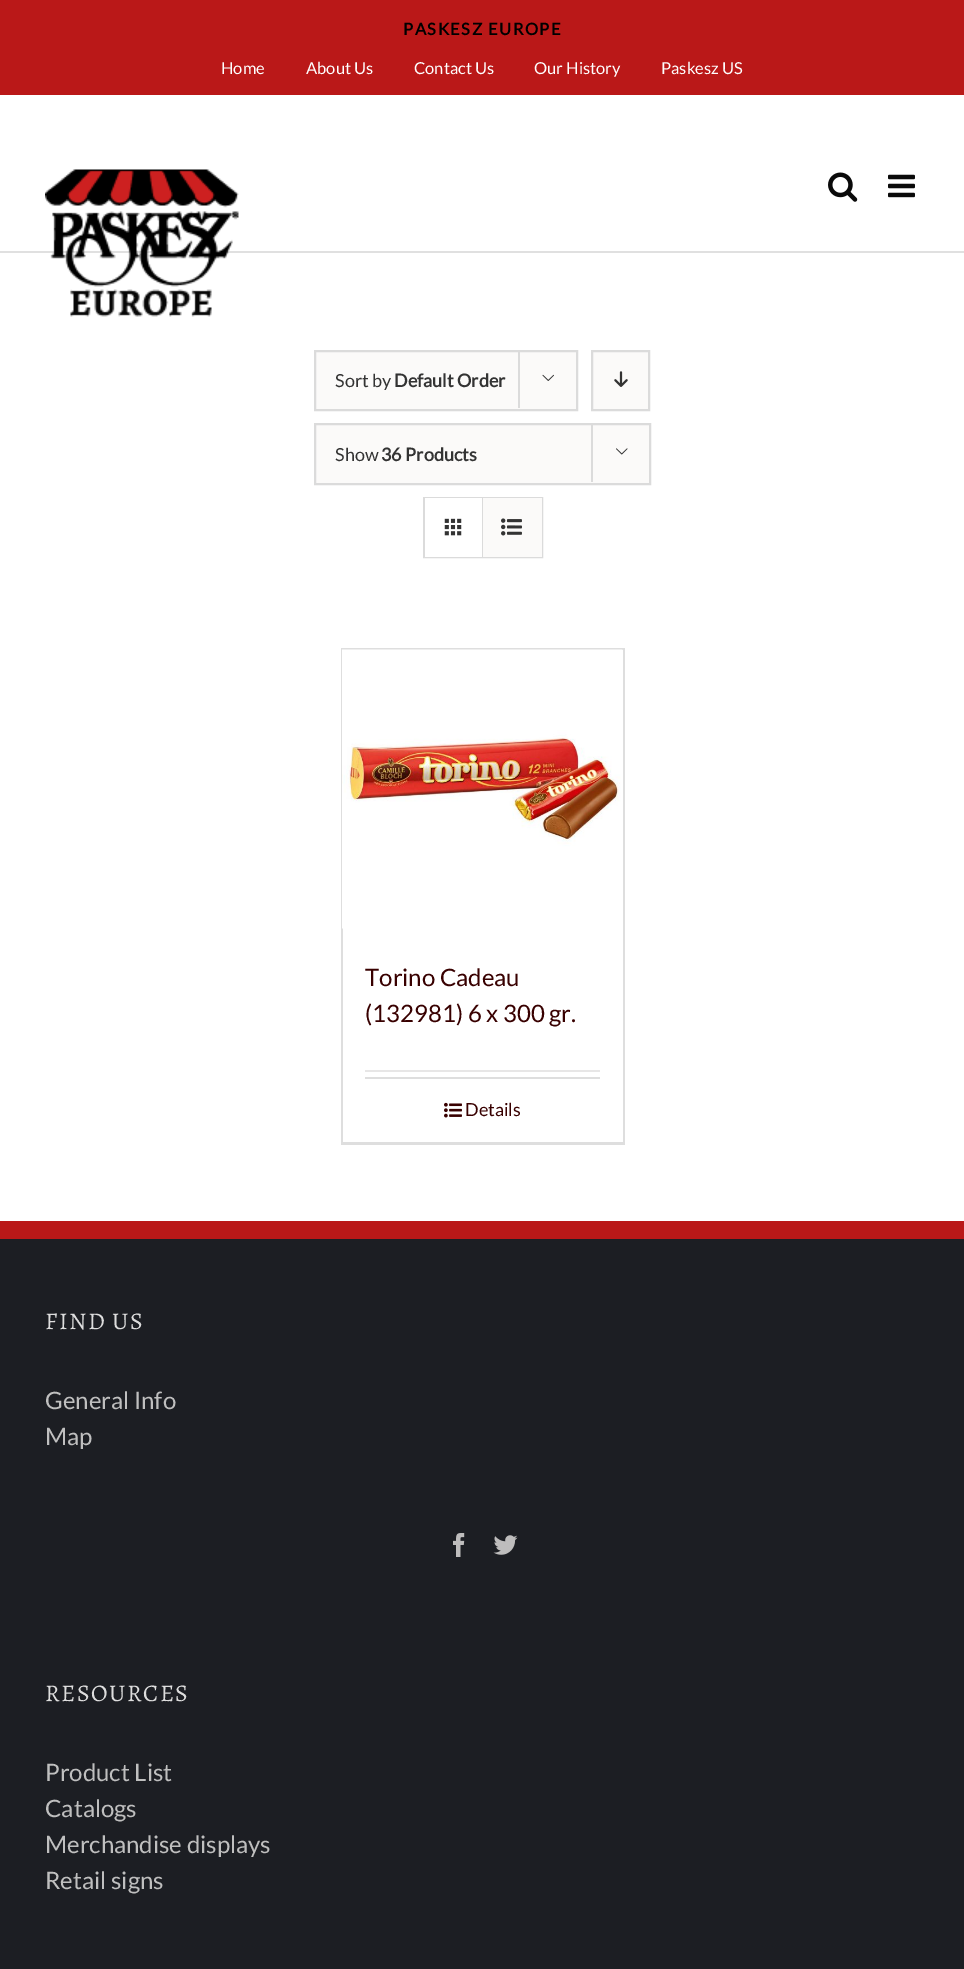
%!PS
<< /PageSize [964 1969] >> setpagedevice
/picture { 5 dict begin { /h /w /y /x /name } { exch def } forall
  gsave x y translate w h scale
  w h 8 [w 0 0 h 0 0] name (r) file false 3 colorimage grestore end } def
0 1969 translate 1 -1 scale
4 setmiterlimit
1 setgray
0 0 964 1969 rectfill
0.729 0.094 0.094 setrgbcolor
0 0 964 95 rectfill
/Lato-Bold [16.5 0 0 -16.5 0 0] selectfont
0 setgray
403 35 moveto 1.5 0 (PASKESZ EUROPE) ashow
/Lato-Regular [16.5 0 0 -16.5 0 0] selectfont
1 setgray
221 74 moveto (Home) show
306 74 moveto (About Us) show
414 74 moveto (Contact Us) show
534 74 moveto (Our History) show
661 74 moveto (Paskesz US) show
0.878 setgray
0 251 964 2 rectfill
(img1.rgb) 45 169 194 148 picture
(img2.rgb) 828 172 30 30 picture
(img3.rgb) 888 174 27 24 picture
0.984 0.98 0.976 setrgbcolor
newpath 315 351 moveto 577 351 lineto 577 410 lineto 315 410 lineto closepath gsave fill grestore
0.859 setgray
2 setlinewidth
stroke
/Lato-Regular [18 0 0 -18 0 0] selectfont
0.2 setgray
335 387 moveto (Sort by) show
/Lato-Bold [18 0 0 -18 0 0] selectfont
394 387 moveto (Default Order) show
0.859 setgray
518 350 2 58 rectfill
(img4.rgb) 542 374 12 7 picture
0.984 0.98 0.976 setrgbcolor
newpath 592 351 moveto 649 351 lineto 649 410 lineto 592 410 lineto closepath gsave fill grestore
0.859 setgray
stroke
(img5.rgb) 614 371 14 16 picture
0.984 0.98 0.976 setrgbcolor
newpath 315 424 moveto 650 424 lineto 650 484 lineto 315 484 lineto closepath gsave fill grestore
0.859 setgray
stroke
/Lato-Regular [18 0 0 -18 0 0] selectfont
0.2 setgray
335 461 moveto (Show) show
/Lato-Bold [18 0 0 -18 0 0] selectfont
381 461 moveto (36 Products) show
0.859 setgray
591 423 2 59 rectfill
(img6.rgb) 616 448 12 7 picture
424 498 118 59 rectstroke
1 setgray
425 498 57 59 rectfill
0.859 setgray
482 498 1 59 rectfill
(img7.rgb) 444 518 18 18 picture
0.984 0.98 0.976 setrgbcolor
483 498 59 59 rectfill
(img8.rgb) 501 518 21 18 picture
0.871 setgray
341 648 283 2 rectfill
623 648 2 497 rectfill
341 1142 283 3 rectfill
341 648 2 497 rectfill
(img9.rgb) 342 649 281 280 picture
0.906 0.902 0.902 setrgbcolor
365 1070 235 2 rectfill
/Lato-Regular [24 0 0 -24 0 0] selectfont
0.22 0 0 setrgbcolor
365 986 moveto (Torino Cadeau) show
365 1022 moveto (\(132981\) 6 x 300 gr.) show
0.871 setgray
365 1077 235 2 rectfill
(img10.rgb) 444 1102 18 16 picture
/Lato-Regular [18 0 0 -18 0 0] selectfont
0.22 0 0 setrgbcolor
465 1116 moveto (Details) show
0.11 0.118 0.137 setrgbcolor
0 1239 964 730 rectfill
0.729 0.094 0.094 setrgbcolor
0 1221 964 18 rectfill
/Alegreya-Regular [24 0 0 -24 0 0] selectfont
0.867 setgray
45 1329 moveto 1.5 0 (FIND US) ashow
/Lato-Regular [24 0 0 -24 0 0] selectfont
0.749 setgray
45 1409 moveto (General Info) show
45 1445 moveto (Map) show
(img11.rgb) 453 1533 12 24 picture
(img12.rgb) 493 1535 25 20 picture
/Alegreya-Regular [24 0 0 -24 0 0] selectfont
0.867 setgray
45 1701 moveto 1.5 0 (RESOURCES) ashow
/Lato-Regular [24 0 0 -24 0 0] selectfont
0.749 setgray
45 1781 moveto (Product List) show
45 1817 moveto (Catalogs) show
45 1853 moveto (Merchandise displays) show
45 1889 moveto (Retail signs) show
showpage
